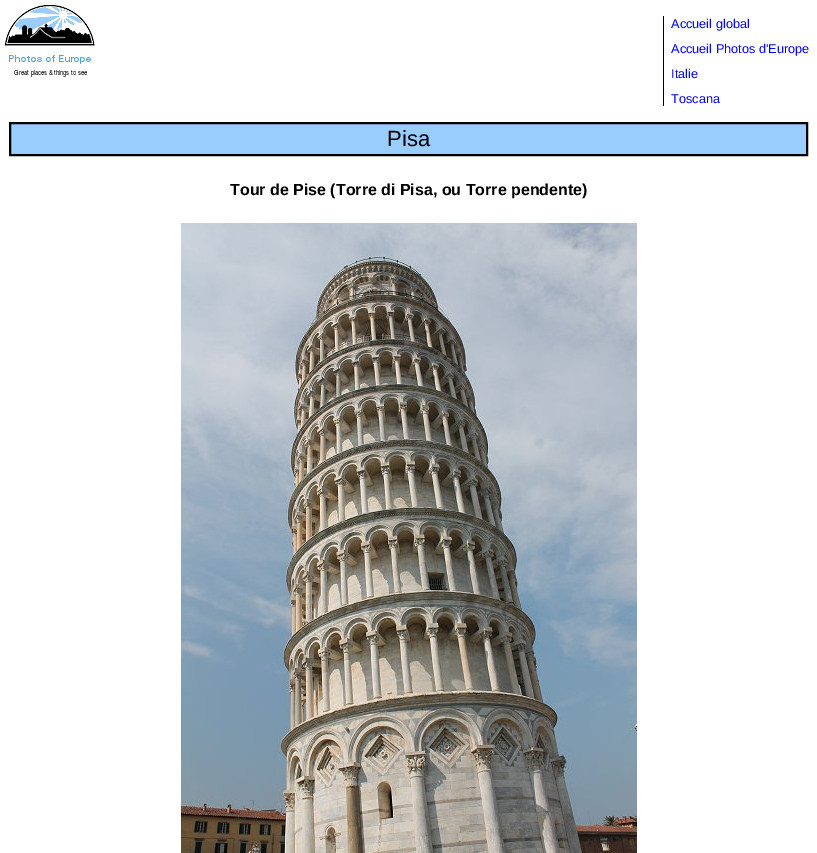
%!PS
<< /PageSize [817 853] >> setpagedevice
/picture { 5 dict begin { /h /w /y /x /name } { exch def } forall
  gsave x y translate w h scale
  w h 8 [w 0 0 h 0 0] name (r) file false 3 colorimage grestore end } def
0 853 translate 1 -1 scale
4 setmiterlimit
1 setgray
0 0 817 853 rectfill
(img1.rgb) 4 5 91 72 picture
0 setgray
663 16 1 90 rectfill
/LiberationSans-Regular [12.75 0 0 -12.75 0 0] selectfont
0 0 1 setrgbcolor
671 28 moveto (Accueil global) show
671 53 moveto (Accueil Photos d'Europe) show
671 78 moveto (Italie) show
671 103 moveto (Toscana) show
0.6 0.8 1 setrgbcolor
newpath 10 123 moveto 807 123 lineto 807 155 lineto 10 155 lineto closepath gsave fill grestore
0 setgray
2 setlinewidth
stroke
/LiberationSans-Regular [22 0 0 -22 0 0] selectfont
387 146 moveto (Pisa) show
/LiberationSans-Bold [16 0 0 -16 0 0] selectfont
230 195 moveto (Tour de Pise \(Torre di Pisa, ou Torre pendente\)) show
(img2.rgb) 181 223 456 630 picture
showpage
